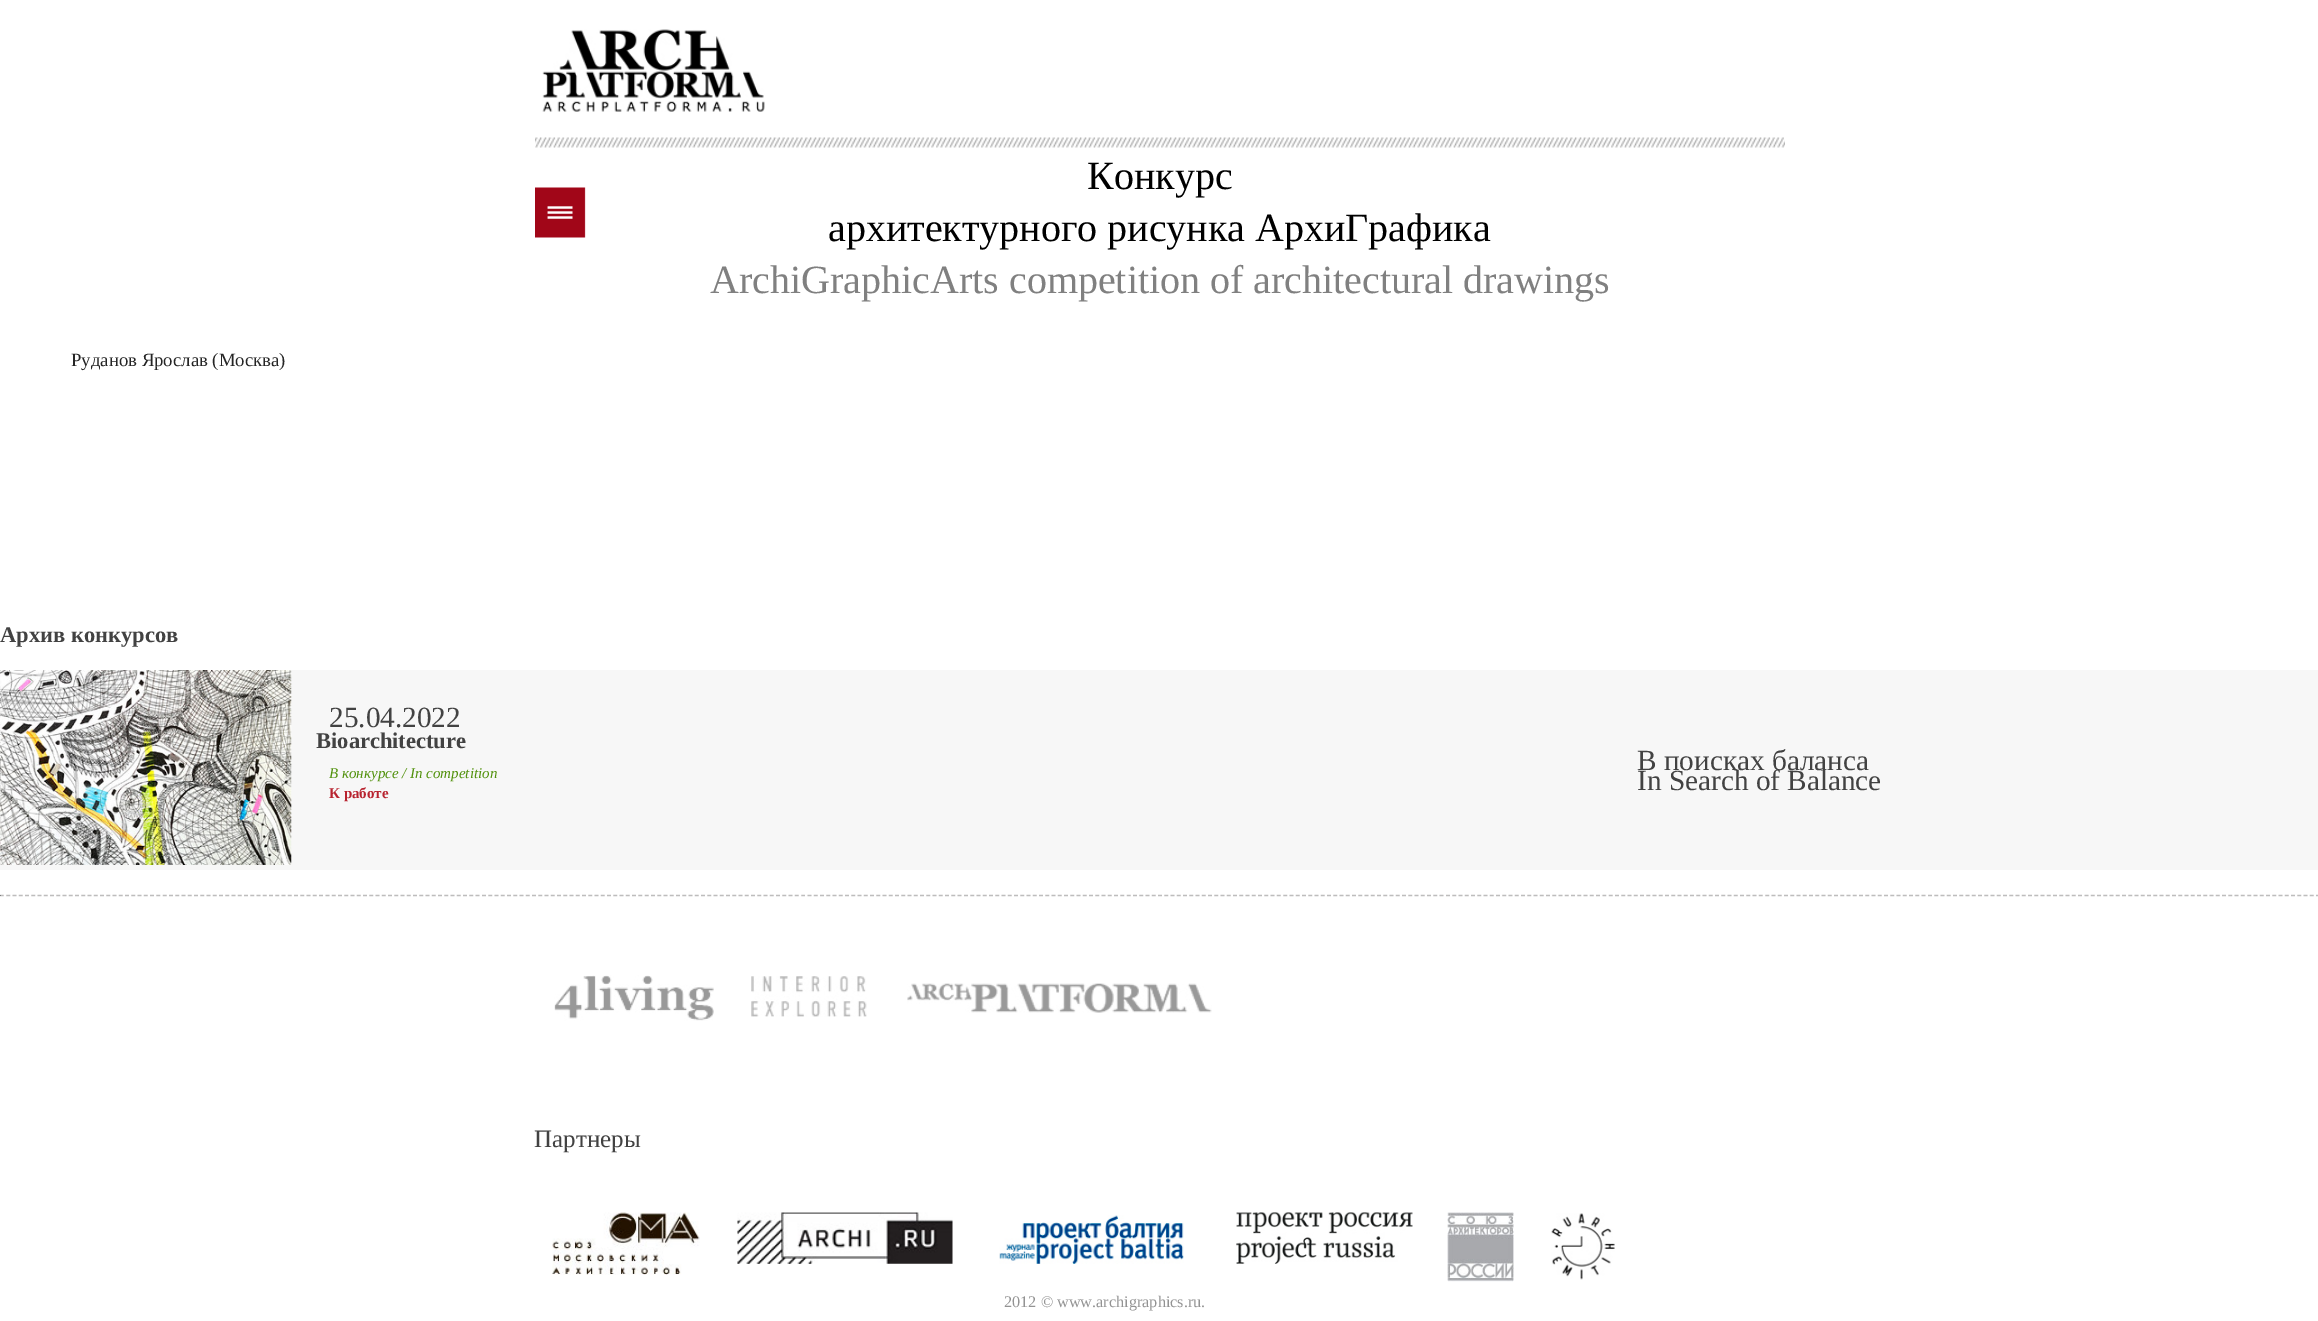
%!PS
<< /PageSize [2318 1321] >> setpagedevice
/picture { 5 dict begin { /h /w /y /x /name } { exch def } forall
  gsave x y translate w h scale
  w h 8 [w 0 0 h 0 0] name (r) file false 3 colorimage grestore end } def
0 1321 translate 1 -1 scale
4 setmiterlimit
1 setgray
0 0 2318 1321 rectfill
(img1.rgb) 542 29 223 83 picture
(img2.rgb) 535 137 1250 11 picture
(img3.rgb) 535 187 51 51 picture
/LiberationSerif-Regular [40 0 0 -40 0 0] selectfont
0 setgray
1087 189 moveto (Конкурс) show
828 241 moveto (архитектурного рисунка АрхиГрафика) show
0.502 setgray
710 293 moveto (ArchiGraphicArts competition of architectural drawings) show
/LiberationSerif-Regular [18.75 0 0 -18.75 0 0] selectfont
0.145 setgray
71 366 moveto (Руданов Ярослав \(Москва\)) show
/LiberationSerif-Bold [22.5 0 0 -22.5 0 0] selectfont
0.259 setgray
0 642 moveto (Архив конкурсов) show
0.969 setgray
0 670 2318 200 rectfill
(img4.rgb) 0 670 292 195 picture
/LiberationSerif-Regular [29.25 0 0 -29.25 0 0] selectfont
0.259 setgray
329 727 moveto (25.04.2022) show
/LiberationSerif-Bold [22.5 0 0 -22.5 0 0] selectfont
316 748 moveto (Bioarchitecture) show
/LiberationSerif-Italic [15 0 0 -15 0 0] selectfont
0.322 0.573 0.051 setrgbcolor
329 778 moveto (В конкурсе / In competition) show
/LiberationSerif-Bold [15 0 0 -15 0 0] selectfont
0.722 0.137 0.184 setrgbcolor
329 798 moveto (К работе) show
/LiberationSerif-Regular [29.25 0 0 -29.25 0 0] selectfont
0.259 setgray
1637 770 moveto (В поисках баланса) show
1637 790 moveto (In Search of Balance) show
0.745 0.741 0.741 setrgbcolor
1.2 setlinewidth
[3.75 2.51] 0 setdash
newpath 0 895.5 moveto 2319 895.5 lineto stroke
0.502 setgray
0 895 1 1 rectfill
(img5.rgb) 554 975 160 46 picture
(img6.rgb) 751 976 116 41 picture
(img7.rgb) 907 983 305 30 picture
/LiberationSerif-Regular [25 0 0 -25 0 0] selectfont
0.259 setgray
534 1147 moveto (Партнеры) show
(img8.rgb) 552 1212 148 63 picture
(img9.rgb) 737 1212 216 52 picture
(img10.rgb) 999 1215 185 49 picture
(img11.rgb) 1236 1212 177 52 picture
(img12.rgb) 1447 1212 67 70 picture
(img13.rgb) 1551 1213 64 67 picture
/LiberationSerif-Regular [16.25 0 0 -16.25 0 0] selectfont
0.576 setgray
1004 1307 moveto (2012 © www.archigraphics.ru.) show
showpage
